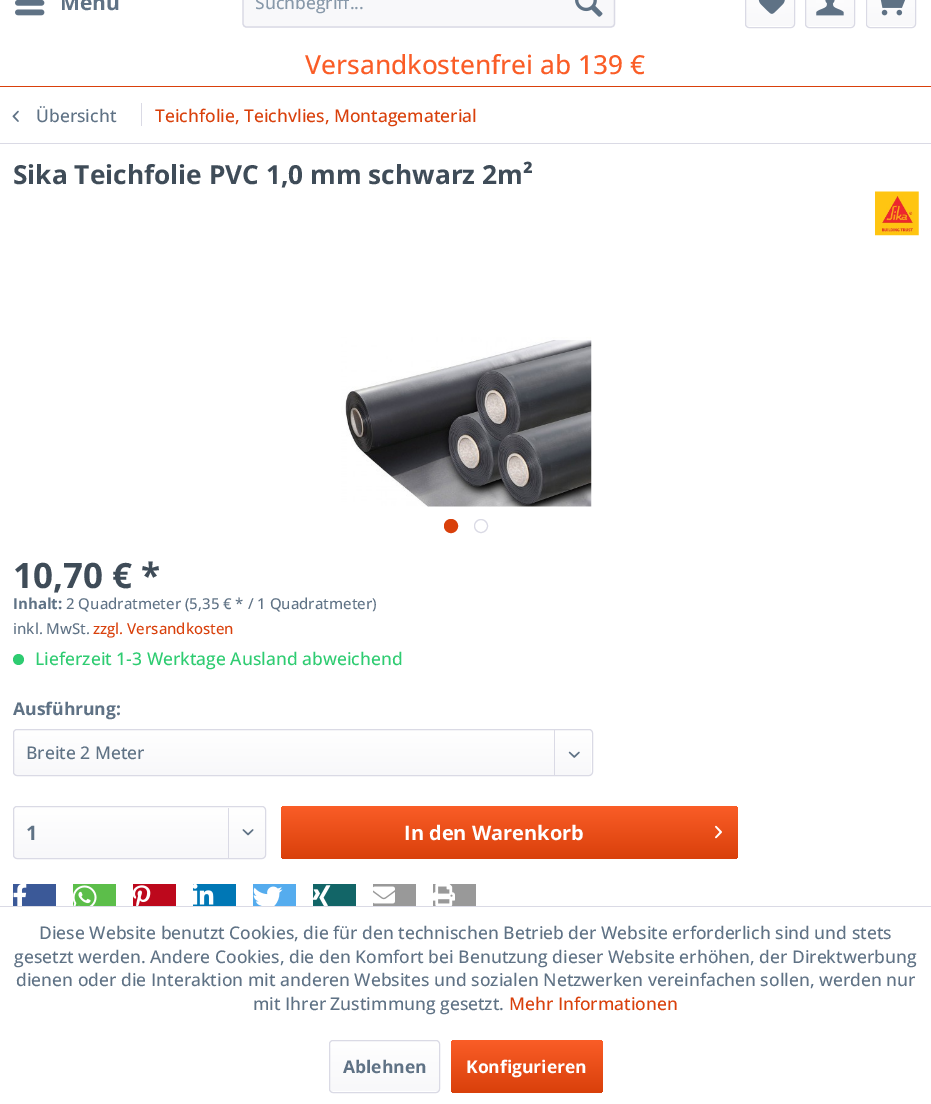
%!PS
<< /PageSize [931 1104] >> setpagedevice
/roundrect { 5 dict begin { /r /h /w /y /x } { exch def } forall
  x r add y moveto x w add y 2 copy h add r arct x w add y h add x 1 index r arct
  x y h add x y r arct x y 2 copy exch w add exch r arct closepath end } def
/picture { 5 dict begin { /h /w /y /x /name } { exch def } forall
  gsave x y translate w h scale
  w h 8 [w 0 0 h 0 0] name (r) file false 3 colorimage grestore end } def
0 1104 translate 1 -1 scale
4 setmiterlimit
1 setgray
0 0 931 1104 rectfill
0.851 0.251 0.043 setrgbcolor
0 86 931 1 rectfill
(img1.rgb) 15 0 30 16 picture
/OpenSans-Bold [21 0 0 -21 0 0] selectfont
0.373 0.447 0.522 setrgbcolor
60 10 moveto (Menü) show
0.973 0.973 0.98 setrgbcolor
243 -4 372 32 4 roundrect fill
0.855 0.855 0.898 setrgbcolor
1.2 setlinewidth
newpath 613.5 -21 moveto 614.5 -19 lineto 614.5 24 lineto 613.5 26 lineto 611 27 lineto 246 27 lineto 244 26 lineto 243 24 lineto 243 -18.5 lineto 244 -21 lineto stroke
/OpenSans-Medium [17.5 0 0 -17.5 0 0] selectfont
0.529 0.596 0.663 setrgbcolor
255 9 moveto (Suchbegriff...) show
(img2.rgb) 575 0 28 17 picture
gsave 746 -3 48 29 2.5 roundrect clip newpath
<< /ShadingType 2 /ColorSpace /DeviceRGB /Coords [770 -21 770 26] /Extend [true true] /Function << /FunctionType 2 /Domain [0 1] /C0 [1 1 1] /C1 [0.973 0.973 0.98] /N 1 >> >> shfill grestore
0.855 0.855 0.898 setrgbcolor
1 setlinewidth
745.5 -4.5 49 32 3.5 roundrect stroke
(img3.rgb) 758 0 27 14 picture
gsave 806 -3 48 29 2.5 roundrect clip newpath
<< /ShadingType 2 /ColorSpace /DeviceRGB /Coords [830 -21 830 26] /Extend [true true] /Function << /FunctionType 2 /Domain [0 1] /C0 [1 1 1] /C1 [0.973 0.973 0.98] /N 1 >> >> shfill grestore
805.5 -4.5 49 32 3.5 roundrect stroke
(img4.rgb) 816 0 28 16 picture
gsave 868 -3 47 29 2.5 roundrect clip newpath
<< /ShadingType 2 /ColorSpace /DeviceRGB /Coords [891 -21 891 26] /Extend [true true] /Function << /FunctionType 2 /Domain [0 1] /C0 [1 1 1] /C1 [0.973 0.973 0.98] /N 1 >> >> shfill grestore
866.5 -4.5 49 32 3.5 roundrect stroke
(img5.rgb) 880 0 25 16 picture
/OpenSans-Medium [26.25 0 0 -26.25 0 0] selectfont
0.98 0.365 0.153 setrgbcolor
305 74 moveto (Versandkostenfrei ab 139 €) show
0.855 0.855 0.898 setrgbcolor
0 143 931 1 rectfill
(img6.rgb) 12 110 7 12 picture
/OpenSans-Medium [17.5 0 0 -17.5 0 0] selectfont
0.373 0.447 0.522 setrgbcolor
36 122 moveto (Übersicht) show
0.855 0.855 0.898 setrgbcolor
141 103 1 23 rectfill
0.851 0.251 0.043 setrgbcolor
155 122 moveto (Teichfolie, Teichvlies, Montagematerial) show
/OpenSans-Bold [26.25 0 0 -26.25 0 0] selectfont
0.247 0.298 0.345 setrgbcolor
13 184 moveto (Sika Teichfolie PVC 1,0 mm schwarz 2m²) show
(img7.rgb) 875 191 44 45 picture
(img8.rgb) 341 337 251 170 picture
0.851 0.251 0.043 setrgbcolor
newpath 451 526 6.5 0 360 arc closepath gsave fill grestore
stroke
0.855 0.855 0.898 setrgbcolor
newpath 481 526 6.5 0 360 arc closepath stroke
/OpenSans-Bold [35 0 0 -35 0 0] selectfont
0.247 0.298 0.345 setrgbcolor
13 588 moveto (10,70 € *) show
/OpenSans-Bold [15 0 0 -15 0 0] selectfont
0.373 0.447 0.522 setrgbcolor
13 609 moveto (Inhalt:) show
/OpenSans-Medium [15 0 0 -15 0 0] selectfont
66 609 moveto (2 Quadratmeter \(5,35 € * / 1 Quadratmeter\)) show
13 634 moveto (inkl. MwSt.) show
0.851 0.251 0.043 setrgbcolor
93 634 moveto (zzgl. Versandkosten) show
0.18 0.8 0.443 setrgbcolor
newpath 18.5 659.5 5.5 0 360 arc closepath fill
/OpenSans-Medium [17.5 0 0 -17.5 0 0] selectfont
35 665 moveto (Lieferzeit 1-3 Werktage Ausland abweichend) show
/OpenSans-Bold [17.5 0 0 -17.5 0 0] selectfont
0.373 0.447 0.522 setrgbcolor
13 715 moveto (Ausführung:) show
gsave 14 730 577 45 2.5 roundrect clip newpath
<< /ShadingType 2 /ColorSpace /DeviceRGB /Coords [303 730 303 775] /Extend [true true] /Function << /FunctionType 2 /Domain [0 1] /C0 [1 1 1] /C1 [0.973 0.973 0.98] /N 1 >> >> shfill grestore
0.855 0.855 0.898 setrgbcolor
13.5 729.5 579 46 3.5 roundrect stroke
/OpenSans-Medium [17.5 0 0 -17.5 0 0] selectfont
0.373 0.447 0.522 setrgbcolor
26 759 moveto (Breite 2 Meter) show
0.855 0.855 0.898 setrgbcolor
554 730 1 45 rectfill
(img9.rgb) 568 751 12 7 picture
gsave 14 808 251 50 2.5 roundrect clip newpath
<< /ShadingType 2 /ColorSpace /DeviceRGB /Coords [139 808 139 858] /Extend [true true] /Function << /FunctionType 2 /Domain [0 1] /C0 [1 1 1] /C1 [0.973 0.973 0.98] /N 1 >> >> shfill grestore
13.5 806.5 252 52 3.5 roundrect stroke
/OpenSans-Bold [20 0 0 -20 0 0] selectfont
0.373 0.447 0.522 setrgbcolor
26 840 moveto (1) show
0.855 0.855 0.898 setrgbcolor
228 808 1 50 rectfill
(img10.rgb) 242 829 12 7 picture
gsave 281 806 457 53 4 roundrect clip newpath
<< /ShadingType 2 /ColorSpace /DeviceRGB /Coords [509 806 509 859] /Extend [true true] /Function << /FunctionType 2 /Domain [0 1] /C0 [0.98 0.365 0.153] /C1 [0.851 0.251 0.043] /N 1 >> >> shfill grestore
1 setgray
404 840 moveto (In den Warenkorb) show
(img11.rgb) 715 825 7 14 picture
0.231 0.349 0.596 setrgbcolor
13 884 43 22 rectfill
(img12.rgb) 13 884 14 22 picture
0.361 0.745 0.29 setrgbcolor
73 884 43 22 rectfill
(img13.rgb) 73 885 24 21 picture
0.741 0.031 0.11 setrgbcolor
133 884 43 22 rectfill
(img14.rgb) 133 885 18 21 picture
0 0.467 0.71 setrgbcolor
193 884 43 22 rectfill
(img15.rgb) 193 884 21 21 picture
0.333 0.675 0.933 setrgbcolor
253 884 43 22 rectfill
(img16.rgb) 253 886 30 20 picture
0.071 0.396 0.404 setrgbcolor
313 884 43 22 rectfill
(img17.rgb) 313 885 18 21 picture
0.6 setgray
373 884 43 22 rectfill
(img18.rgb) 373 886 22 18 picture
433 884 43 22 rectfill
(img19.rgb) 433 884 22 22 picture
0.855 0.855 0.898 setrgbcolor
0 906 931 1 rectfill
/OpenSans-Medium [17.5 0 0 -17.5 0 0] selectfont
0.373 0.447 0.522 setrgbcolor
39 939 moveto (Diese Website benutzt Cookies, die für den technischen Betrieb der Website erforderlich sind und stets) show
14 963 moveto (gesetzt werden. Andere Cookies, die den Komfort bei Benutzung dieser Website erhöhen, der Direktwerbung) show
16 986 moveto (dienen oder die Interaktion mit anderen Websites und sozialen Netzwerken vereinfachen sollen, werden nur) show
253 1010 moveto (mit Ihrer Zustimmung gesetzt.) show
0.851 0.251 0.043 setrgbcolor
509 1010 moveto (Mehr Informationen) show
gsave 330 1041 109 50 2.5 roundrect clip newpath
<< /ShadingType 2 /ColorSpace /DeviceRGB /Coords [384 1041 384 1091] /Extend [true true] /Function << /FunctionType 2 /Domain [0 1] /C0 [1 1 1] /C1 [0.973 0.973 0.98] /N 1 >> >> shfill grestore
0.855 0.855 0.898 setrgbcolor
329.5 1040.5 110 52 3.5 roundrect stroke
/OpenSans-Bold [17.5 0 0 -17.5 0 0] selectfont
0.373 0.447 0.522 setrgbcolor
343 1073 moveto (Ablehnen) show
gsave 451 1040 152 53 4 roundrect clip newpath
<< /ShadingType 2 /ColorSpace /DeviceRGB /Coords [527 1040 527 1093] /Extend [true true] /Function << /FunctionType 2 /Domain [0 1] /C0 [0.98 0.365 0.153] /C1 [0.851 0.251 0.043] /N 1 >> >> shfill grestore
1 setgray
466 1073 moveto (Konfigurieren) show
showpage
